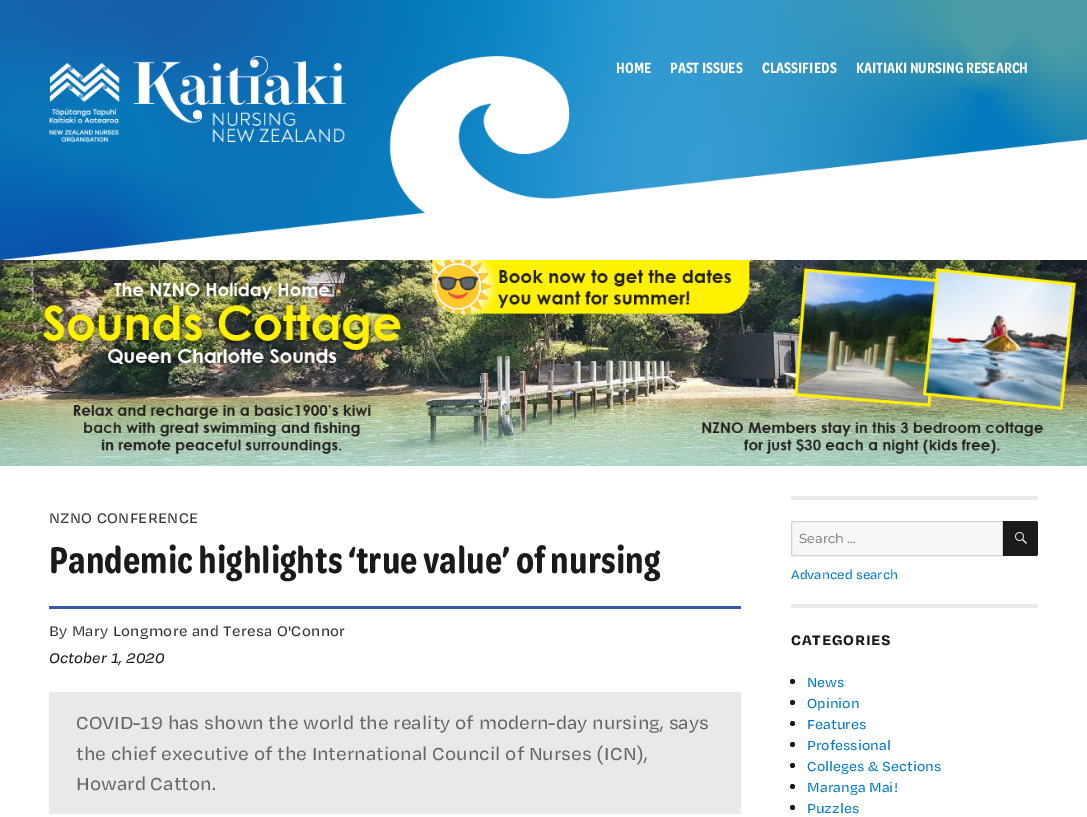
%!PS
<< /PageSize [1087 817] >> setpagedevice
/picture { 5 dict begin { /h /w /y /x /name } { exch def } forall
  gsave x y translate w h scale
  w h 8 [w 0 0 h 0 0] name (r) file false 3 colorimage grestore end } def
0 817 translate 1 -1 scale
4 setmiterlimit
1 setgray
0 0 1087 817 rectfill
(img1.rgb) 0 0 1087 260 picture
(img2.rgb) 49 55 297 87 picture
/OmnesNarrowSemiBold-SemiBold [16 0 0 -16 0 0] selectfont
616 73 moveto (HOME) show
670 73 moveto (PAST ISSUES) show
762 73 moveto (CLASSIFIEDS) show
856 73 moveto (KAITIAKI NURSING RESEARCH) show
(img3.rgb) 0 260 1087 206 picture
/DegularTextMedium-Medium [16 0 0 -16 0 0] selectfont
0.2 setgray
49 523 moveto 0.3 0 (NZNO CONFERENCE) ashow
0.208 0.357 0.655 setrgbcolor
49 606 692 3 rectfill
/OmnesNarrowSemiBold-SemiBold [40 0 0 -40 0 0] selectfont
0.102 setgray
49 573 moveto (Pandemic highlights ‘true value’ of nursing) show
/DegularTextMedium-Medium [16 0 0 -16 0 0] selectfont
0.2 setgray
49 636 moveto 0.3 0 (By Mary Longmore and Teresa O'Connor) ashow
/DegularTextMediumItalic-MediumItalic [16 0 0 -16 0 0] selectfont
0.102 setgray
49 663 moveto (October 1, 2020) show
0.914 setgray
49 692 692 122 rectfill
/DegularTextMedium-Medium [20 0 0 -20 0 0] selectfont
0.408 setgray
76 729 moveto (COVID-19 has shown the world the reality of modern-day nursing, says) show
76 760 moveto (the chief executive of the International Council of Nurses \(ICN\),) show
76 790 moveto (Howard Catton.) show
0.914 setgray
791 496 247 4 rectfill
0.969 setgray
newpath 793 521.5 moveto 1002.5 521.5 lineto 1002.5 555.5 lineto 793 555.5 lineto 792 555.5 791.5 555 791.5 554 curveto 791.5 523 lineto 791.5 522 792 521.5 793 521.5 curveto closepath gsave fill grestore
0.82 setgray
stroke
/Montserrat-Regular [13 0 0 -13 0 0] selectfont
0.408 setgray
799 543 moveto (Search …) show
0.102 setgray
newpath 1003 521 moveto 1036 521 lineto 1037 521 1038 522 1038 523 curveto 1038 554 lineto 1038 555 1037 556 1036 556 curveto 1003 556 lineto closepath fill
(img4.rgb) 1015 532 12 12 picture
/DegularTextMedium-Medium [14 0 0 -14 0 0] selectfont
0 0.478 0.8 setrgbcolor
791 579 moveto (Advanced search) show
0.914 setgray
791 604 247 4 rectfill
/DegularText-Bold [16 0 0 -16 0 0] selectfont
0.102 setgray
791 645 moveto 0.75 0 (CATEGORIES) ashow
newpath 792.5 681.5 2.5 0 360 arc closepath fill
/DegularTextMedium-Medium [15 0 0 -15 0 0] selectfont
0 0.478 0.8 setrgbcolor
807 687 moveto (News) show
0.102 setgray
newpath 792.5 702.5 2.5 0 360 arc closepath fill
0 0.478 0.8 setrgbcolor
807 708 moveto (Opinion) show
0.102 setgray
newpath 792.5 723.5 2.5 0 360 arc closepath fill
0 0.478 0.8 setrgbcolor
807 729 moveto (Features) show
0.102 setgray
newpath 792.5 744.5 2.5 0 360 arc closepath fill
0 0.478 0.8 setrgbcolor
807 750 moveto (Professional) show
0.102 setgray
newpath 792.5 765.5 2.5 0 360 arc closepath fill
0 0.478 0.8 setrgbcolor
807 771 moveto (Colleges & Sections) show
0.102 setgray
newpath 792.5 786.5 2.5 0 360 arc closepath fill
0 0.478 0.8 setrgbcolor
807 792 moveto (Maranga Mai!) show
0.102 setgray
newpath 792.5 807.5 2.5 0 360 arc closepath fill
0 0.478 0.8 setrgbcolor
807 813 moveto (Puzzles) show
showpage
